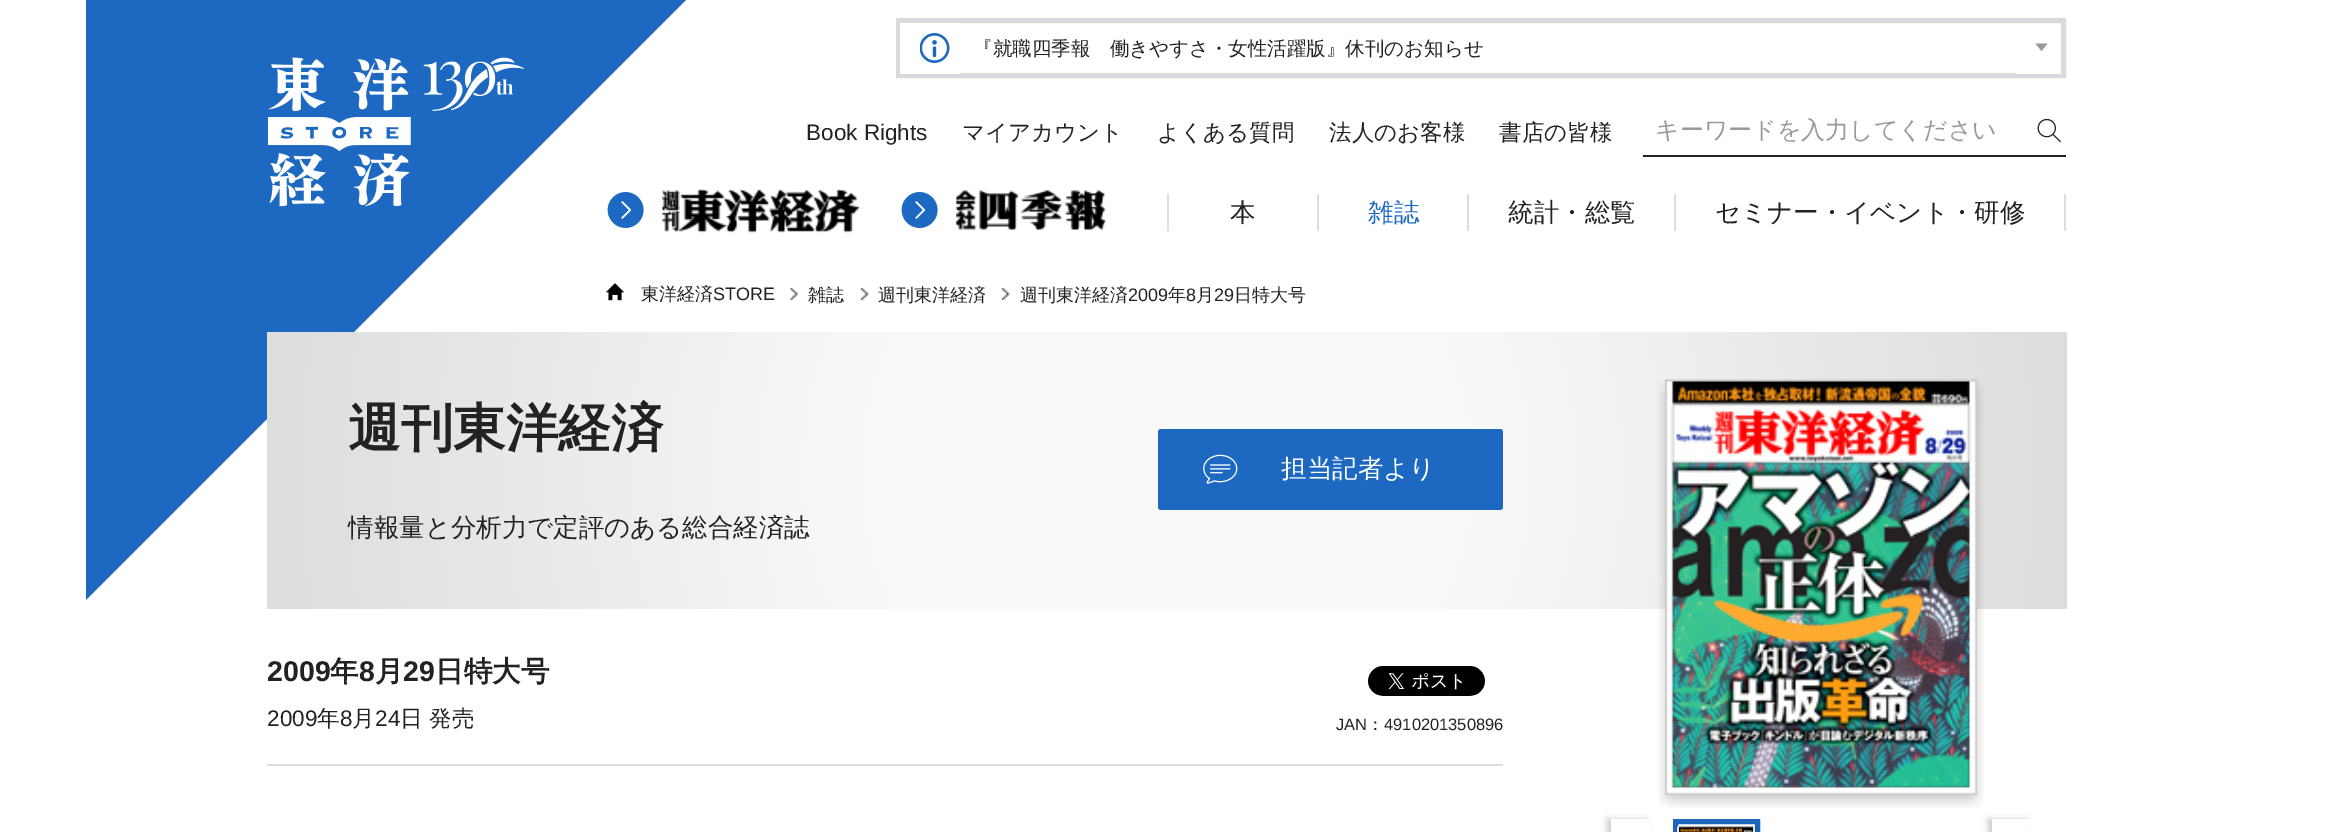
%!PS
<< /PageSize [2331 832] /PageUsesTransparency true >> setpagedevice
/alpha { dup .setfillconstantalpha .setstrokeconstantalpha } def
/roundrect { 5 dict begin { /r /h /w /y /x } { exch def } forall
  x r add y moveto x w add y 2 copy h add r arct x w add y h add x 1 index r arct
  x y h add x y r arct x y 2 copy exch w add exch r arct closepath end } def
/shadow { 12 dict begin { /a /b /q /h /w /y /x } { exch def } forall gsave /was 0 def
  9 -2 -9 { dup b mul 4 div /e exch def 1 sub .425 mul 2.718 exch exp 1 add a .99 .min exch div /now exch def
    1 1 now sub 1 was sub div sub alpha /was now def
    w h .min e 2 mul add 0 gt { x e sub y e sub w e 2 mul add h e 2 mul add
      q e add b .6 mul add w h .min 2 div e add .min 0 .max roundrect fill } if } for grestore end } def
/picture { 5 dict begin { /h /w /y /x /name } { exch def } forall
  gsave x y translate w h scale
  w h 8 [w 0 0 h 0 0] name (r) file false 3 colorimage grestore end } def
0 .pushpdf14devicefilter
0 832 translate 1 -1 scale
4 setmiterlimit
1 setgray
0 0 2331 832 rectfill
0.114 0.412 0.761 setrgbcolor
newpath 86 0 moveto 686 0 lineto 86 600 lineto closepath fill
0.847 0.855 0.867 setrgbcolor
5 setlinewidth
898.5 20.5 1165 55 rectstroke
1 setgray
900 23 60 51 rectfill
(img1.rgb) 920 33 30 30 picture
/WenQuanYiZenHei-Medium [19.5 0 0 -19.5 0 0] selectfont
0.133 setgray
973 55 moveto (『就職四季報　働きやすさ・女性活躍版』休刊のお知らせ) show
1 setgray
2016 73 45 1 rectfill
0.604 setgray
newpath 2035.5 43.5 moveto 2047.5 43.5 lineto 2041.5 51 lineto closepath fill
(img2.rgb) 267 57 257 150 picture
/LiberationSans-Regular [22.5 0 0 -22.5 0 0] selectfont
0.133 setgray
806 140 moveto (Book Rights) show
/WenQuanYiZenHei-Medium [22.5 0 0 -22.5 0 0] selectfont
962 140 moveto (マイアカウント) show
1157 140 moveto (よくある質問) show
1329 140 moveto (法人のお客様) show
1499 140 moveto (書店の皆様) show
1643 155 423 2 rectfill
/WenQuanYiZenHei-Medium [24 0 0 -24 0 0] selectfont
0.6 setgray
1655 138 moveto (キーワードを入力してください) show
(img3.rgb) 2037 118 24 25 picture
(img4.rgb) 607 192 37 36 picture
(img5.rgb) 662 189 198 44 picture
(img4.rgb) 901 192 37 36 picture
(img6.rgb) 956 190 150 40 picture
0.867 setgray
1167 194 2 37 rectfill
/WenQuanYiZenHei-Medium [25.5 0 0 -25.5 0 0] selectfont
0.133 setgray
1230 221 moveto (本) show
0.867 setgray
1317 194 2 37 rectfill
0.114 0.412 0.761 setrgbcolor
1368 221 moveto (雑誌) show
0.867 setgray
1467 194 2 37 rectfill
0.133 setgray
1508 221 moveto (統計・総覧) show
0.867 setgray
2064 194 2 37 rectfill
1674 194 2 37 rectfill
0.133 setgray
1715 221 moveto (セミナー・イベント・研修) show
(img7.rgb) 605 283 20 18 picture
/WenQuanYiZenHei-Medium [18 0 0 -18 0 0] selectfont
641 300 moveto (東洋経済) show
/LiberationSans-Regular [18 0 0 -18 0 0] selectfont
713 300 moveto (STORE) show
(img8.rgb) 790 288 8 12 picture
/WenQuanYiZenHei-Medium [18 0 0 -18 0 0] selectfont
808 301 moveto (雑誌) show
(img9.rgb) 861 288 8 12 picture
878 301 moveto (週刊東洋経済) show
(img9.rgb) 1002 288 8 12 picture
1020 301 moveto (週刊東洋経済) show
/LiberationSans-Regular [18 0 0 -18 0 0] selectfont
1128 301 moveto (2009) show
/WenQuanYiZenHei-Medium [18 0 0 -18 0 0] selectfont
1168 301 moveto (年) show
/LiberationSans-Regular [18 0 0 -18 0 0] selectfont
1186 301 moveto (8) show
/WenQuanYiZenHei-Medium [18 0 0 -18 0 0] selectfont
1196 301 moveto (月) show
/LiberationSans-Regular [18 0 0 -18 0 0] selectfont
1214 301 moveto (29) show
/WenQuanYiZenHei-Medium [18 0 0 -18 0 0] selectfont
1234 301 moveto (日特大号) show
gsave newpath 267 332 moveto 2067 332 lineto 2067 609 lineto 267 609 lineto closepath clip newpath 1167 470 translate 911 911 scale
<< /ShadingType 3 /ColorSpace /DeviceRGB /Coords [0 0 0 0 0 1] /Extend [true true] /Function << /FunctionType 3 /Domain [0 1] /Functions [<< /FunctionType 2 /Domain [0 1] /C0 [0.976 0.976 0.976] /C1 [0.976 0.976 0.976] /N 1 >> << /FunctionType 2 /Domain [0 1] /C0 [0.976 0.976 0.976] /C1 [0.867 0.867 0.867] /N 1 >>] /Bounds [0.33] /Encode [0 1 0 1] >> >> shfill grestore
/WenQuanYiZenHei-Bold [52.5 0 0 -52.5 0 0] selectfont
348 446 moveto (週刊東洋経済) show
0.114 0.412 0.761 setrgbcolor
1158 429 345 81 3 roundrect fill
(img10.rgb) 1203 454 35 30 picture
/WenQuanYiZenHei-Medium [25.5 0 0 -25.5 0 0] selectfont
1 setgray
1281 477 moveto (担当記者より) show
0.133 setgray
348 536 moveto (情報量と分析力で定評のある総合経済誌) show
(img11.rgb) 1658 379 326 429 picture
gsave
newpath 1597 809 moveto 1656 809 lineto 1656 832 lineto 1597 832 lineto closepath 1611 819 moveto 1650 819 lineto 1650 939 lineto 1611 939 lineto closepath eoclip newpath
0.016 0 0 setrgbcolor
1607 819 39 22 0 3 0.2 shadow
grestore
0.114 0.412 0.761 setrgbcolor
1675.5 821.5 82 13 rectstroke
gsave
newpath 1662 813 moveto 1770 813 lineto 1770 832 lineto 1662 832 lineto closepath 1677 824 moveto 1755 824 lineto 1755 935 lineto 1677 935 lineto closepath eoclip newpath
0.016 0 0 setrgbcolor
1677 828 78 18 0 4.5 0.2 shadow
grestore
(img12.rgb) 1677 826 78 6 picture
gsave
newpath 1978 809 moveto 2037 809 lineto 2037 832 lineto 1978 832 lineto closepath 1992 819 moveto 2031 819 lineto 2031 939 lineto 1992 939 lineto closepath eoclip newpath
0.016 0 0 setrgbcolor
1988 819 39 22 0 3 0.2 shadow
grestore
0.867 setgray
267 764 1236 2 rectfill
/LiberationSans-Bold [28.5 0 0 -28.5 0 0] selectfont
0.133 setgray
267 681 moveto (2009) show
/WenQuanYiZenHei-Bold [28.5 0 0 -28.5 0 0] selectfont
330 681 moveto (年) show
/LiberationSans-Bold [28.5 0 0 -28.5 0 0] selectfont
359 681 moveto (8) show
/WenQuanYiZenHei-Bold [28.5 0 0 -28.5 0 0] selectfont
375 681 moveto (月) show
/LiberationSans-Bold [28.5 0 0 -28.5 0 0] selectfont
403 681 moveto (29) show
/WenQuanYiZenHei-Bold [28.5 0 0 -28.5 0 0] selectfont
435 681 moveto (日特大号) show
(img13.rgb) 1368 666 117 30 picture
/LiberationSans-Regular [22.5 0 0 -22.5 0 0] selectfont
267 726 moveto (2009) show
/WenQuanYiZenHei-Medium [22.5 0 0 -22.5 0 0] selectfont
317 726 moveto (年) show
/LiberationSans-Regular [22.5 0 0 -22.5 0 0] selectfont
340 726 moveto (8) show
/WenQuanYiZenHei-Medium [22.5 0 0 -22.5 0 0] selectfont
352 726 moveto (月) show
/LiberationSans-Regular [22.5 0 0 -22.5 0 0] selectfont
375 726 moveto (24) show
/WenQuanYiZenHei-Medium [22.5 0 0 -22.5 0 0] selectfont
400 726 moveto (日 発売) show
/LiberationSans-Regular [16.5 0 0 -16.5 0 0] selectfont
1336 730 moveto (JAN) show
/WenQuanYiZenHei-Medium [16.5 0 0 -16.5 0 0] selectfont
1367 730 moveto (：) show
/LiberationSans-Regular [16.5 0 0 -16.5 0 0] selectfont
1384 730 moveto (4910201350896) show
.poppdf14devicefilter showpage
